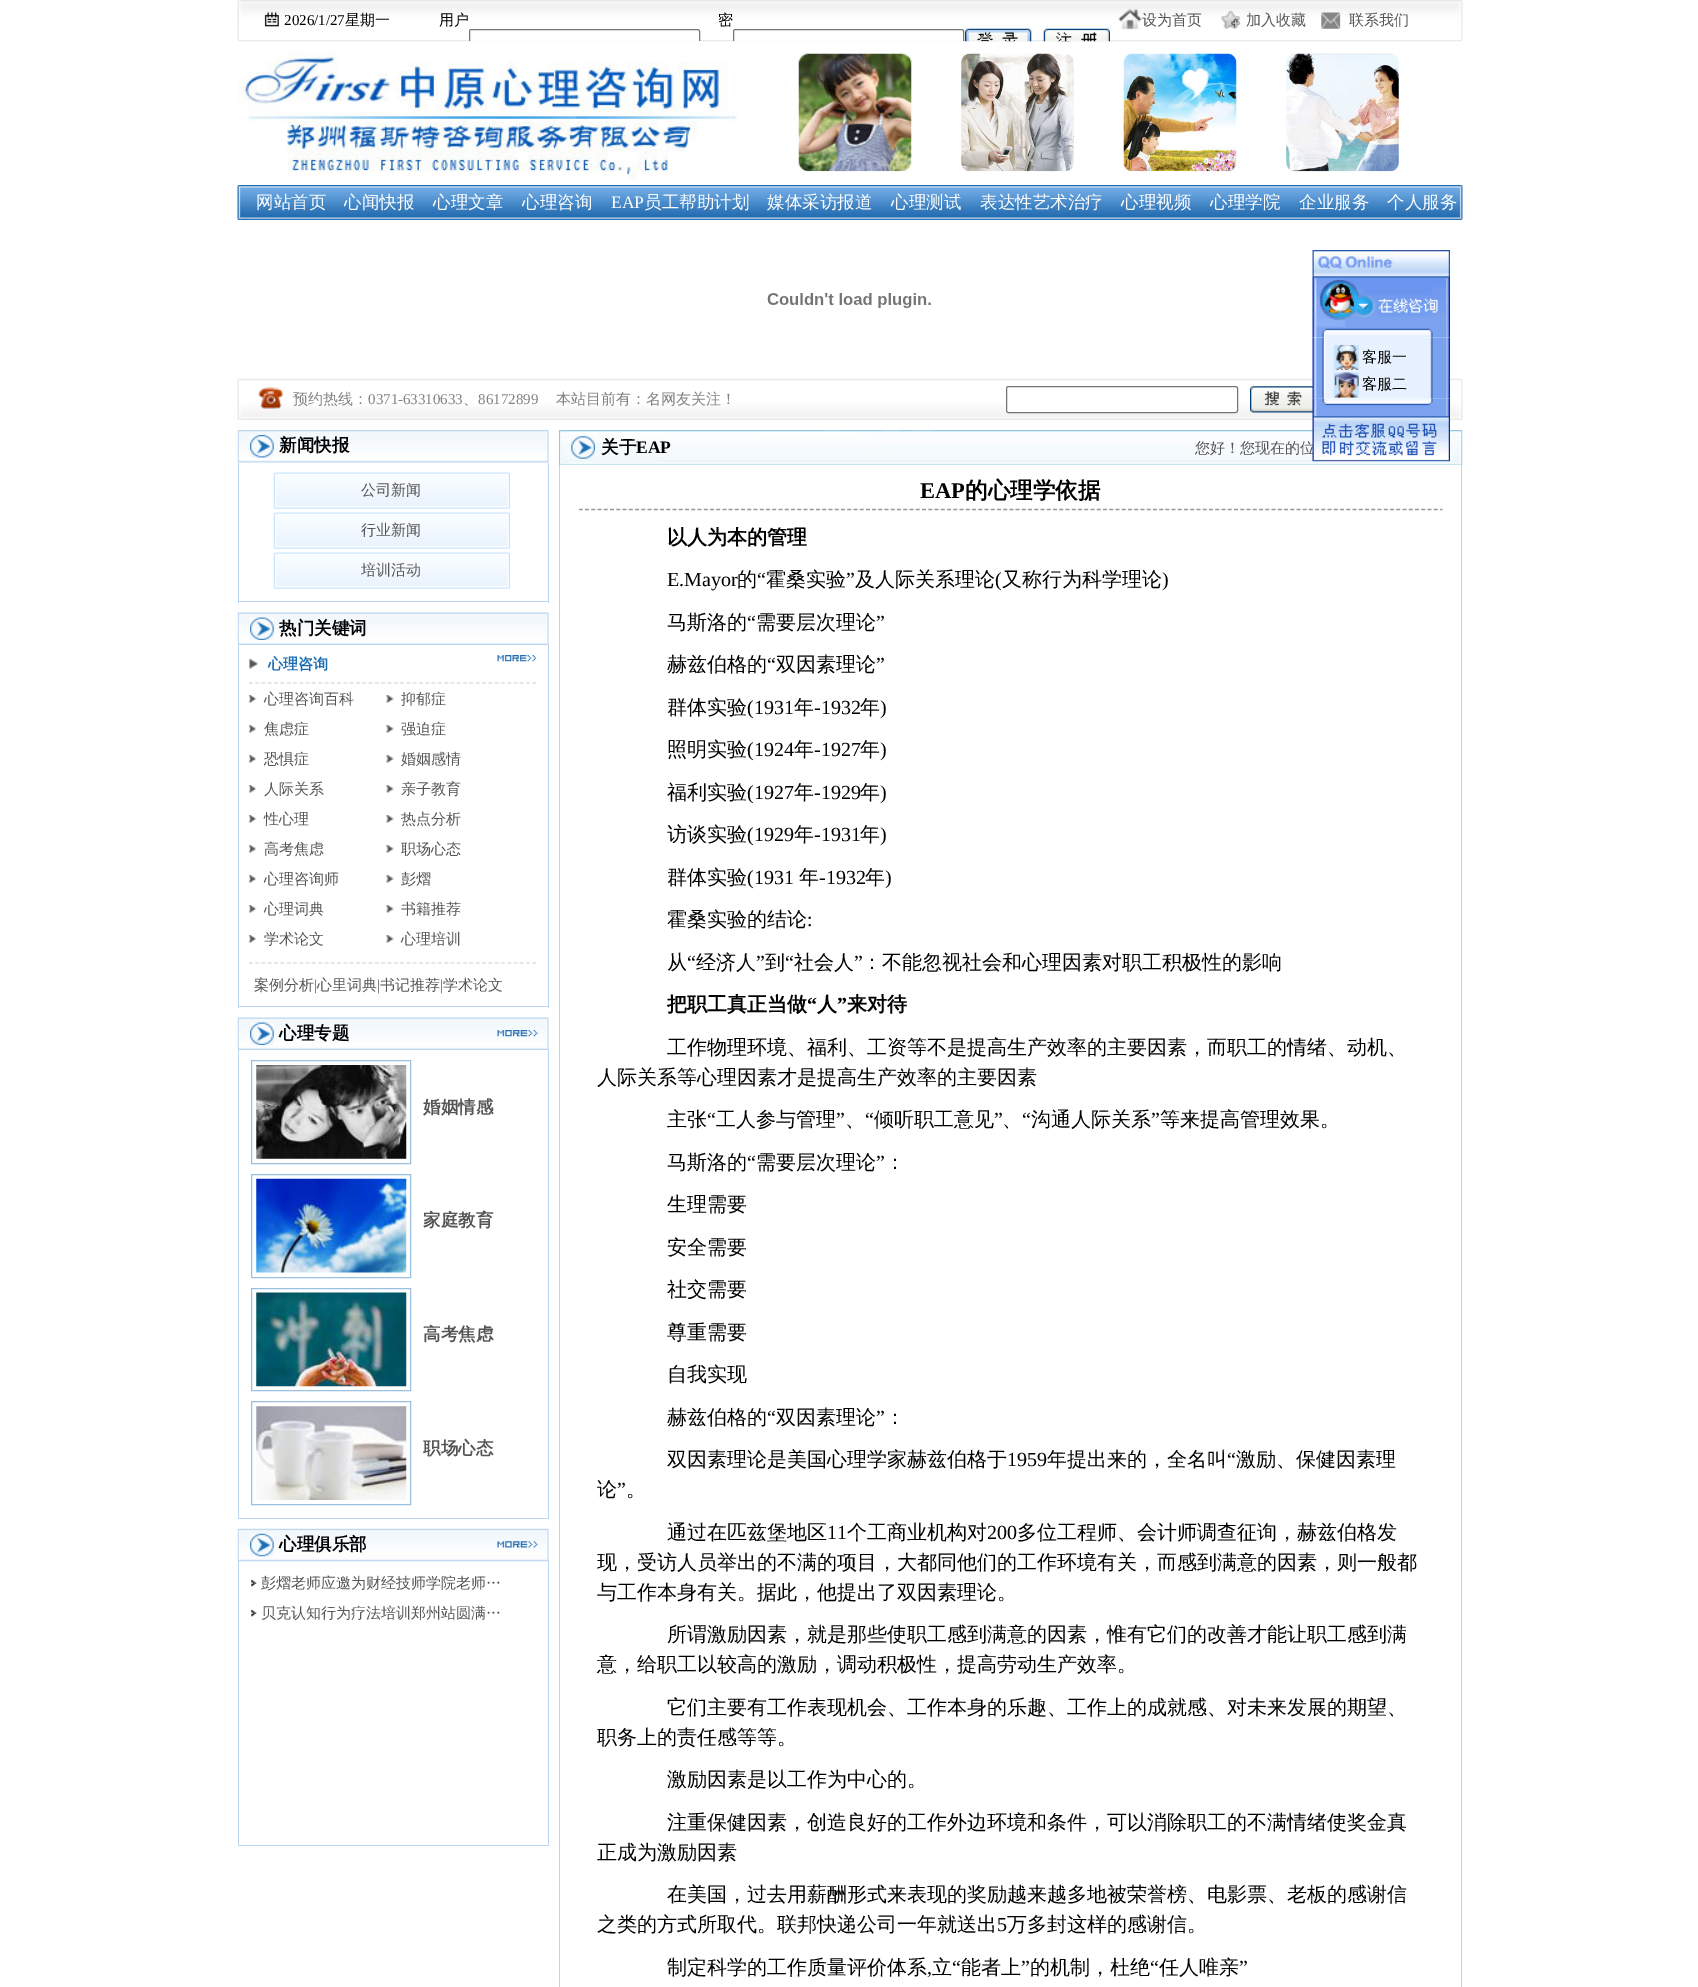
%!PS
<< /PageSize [1698 1987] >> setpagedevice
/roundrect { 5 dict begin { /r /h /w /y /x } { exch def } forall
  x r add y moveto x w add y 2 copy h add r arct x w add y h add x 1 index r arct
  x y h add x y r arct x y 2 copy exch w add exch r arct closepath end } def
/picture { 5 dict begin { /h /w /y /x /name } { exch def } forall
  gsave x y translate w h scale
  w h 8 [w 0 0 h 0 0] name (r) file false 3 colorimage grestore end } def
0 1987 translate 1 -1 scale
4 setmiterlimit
1 setgray
0 0 1698 1987 rectfill
(img1.rgb) 237 0 1226 42 picture
/LiberationSerif-Regular [15 0 0 -15 0 0] selectfont
0 setgray
284 25 moveto (2026/1/27) show
/WenQuanYiZenHei-Medium [15 0 0 -15 0 0] selectfont
345 25 moveto (星期一) show
439 25 moveto (用户) show
718 25 moveto (密) show
1 setgray
newpath 471.5 29 moveto 697.5 29 lineto 699 29 700 30 700 31.5 curveto 700 41 lineto 469 41 lineto 469 31.5 lineto 469 30 470 29 471.5 29 curveto closepath fill
gsave
435 0 675 41 rectclip
0.463 setgray
469.5 29.5 230 25 2 roundrect stroke
grestore
newpath 735.5 29 moveto 961.5 29 lineto 963 29 964 30 964 31.5 curveto 964 41 lineto 733 41 lineto 733 31.5 lineto 733 30 734 29 735.5 29 curveto closepath fill
gsave
435 0 675 41 rectclip
0.463 setgray
733.5 29.5 230 25 2 roundrect stroke
grestore
(img2.rgb) 965 28 67 14 picture
(img3.rgb) 1043 28 67 14 picture
0.333 setgray
1142 25 moveto (设为首页) show
1246 25 moveto (加入收藏) show
1349 25 moveto (联系我们) show
(img4.rgb) 238 51 500 130 picture
(img5.rgb) 798 53 114 119 picture
(img6.rgb) 961 53 113 119 picture
(img7.rgb) 1123 53 114 119 picture
(img8.rgb) 1286 53 113 119 picture
(img9.rgb) 237 185 1226 35 picture
/WenQuanYiZenHei-Medium [17.5 0 0 -17.5 0 0] selectfont
1 setgray
256 208 moveto (网站首页) show
344 208 moveto (心闻快报) show
433 208 moveto (心理文章) show
522 208 moveto (心理咨询) show
/LiberationSerif-Regular [17.5 0 0 -17.5 0 0] selectfont
611 208 moveto (EAP) show
/WenQuanYiZenHei-Medium [17.5 0 0 -17.5 0 0] selectfont
644 208 moveto (员工帮助计划) show
767 208 moveto (媒体采访报道) show
891 208 moveto (心理测试) show
980 208 moveto (表达性艺术治疗) show
1121 208 moveto (心理视频) show
1210 208 moveto (心理学院) show
1299 208 moveto (企业服务) show
1387 208 moveto (个人服务) show
(img10.rgb) 767 293 164 15 picture
(img16.rgb) 237 378 1226 42 picture
(img17.rgb) 1250 386 67 27 picture
(img12.rgb) 1312 337 138 62 picture
(img11.rgb) 1312 250 138 88 picture
(img13.rgb) 1333 345 26 25 picture
/WenQuanYiZenHei-Medium [15 0 0 -15 0 0] selectfont
0 setgray
1362 362 moveto (客服一) show
(img14.rgb) 1333 372 26 26 picture
1362 389 moveto (客服二) show
(img37.rgb) 558 430 905 35 picture
0.333 setgray
1195 453 moveto (您好！您现在的位) show
(img15.rgb) 1312 398 138 64 picture
0.51 setgray
293 404 moveto (预约热线：) show
/LiberationSerif-Regular [15 0 0 -15 0 0] selectfont
368 404 moveto (0371-63310633) show
/WenQuanYiZenHei-Medium [15 0 0 -15 0 0] selectfont
463 404 moveto (、) show
/LiberationSerif-Regular [15 0 0 -15 0 0] selectfont
478 404 moveto (86172899) show
/WenQuanYiZenHei-Medium [15 0 0 -15 0 0] selectfont
556 404 moveto (本站目前有：名网友关注！) show
1 setgray
1006.5 386.5 231 26 2 roundrect gsave fill grestore
0.463 setgray
stroke
(img18.rgb) 237 430 312 33 picture
(img19.rgb) 250 435 24 23 picture
/WenQuanYiZenHei-Bold [17.5 0 0 -17.5 0 0] selectfont
0 setgray
279 451 moveto (新闻快报) show
0.733 0.839 0.941 setrgbcolor
548 463 1 140 rectfill
238 601 311 1 rectfill
238 463 1 140 rectfill
(img20.rgb) 273 472 237 37 picture
/WenQuanYiZenHei-Medium [15 0 0 -15 0 0] selectfont
0.333 setgray
361 495 moveto (公司新闻) show
(img20.rgb) 273 512 237 37 picture
361 535 moveto (行业新闻) show
(img20.rgb) 273 552 237 37 picture
361 575 moveto (培训活动) show
(img21.rgb) 237 612 312 33 picture
(img22.rgb) 250 617 24 23 picture
/WenQuanYiZenHei-Bold [17.5 0 0 -17.5 0 0] selectfont
0 setgray
279 634 moveto (热门关键词) show
0.733 0.839 0.941 setrgbcolor
548 645 1 363 rectfill
238 1006 311 1 rectfill
238 645 1 363 rectfill
0.875 setgray
1.2 setlinewidth
[3.75 2.55] 0 setdash
newpath 249 963 moveto 536 963 lineto stroke
(img23.rgb) 248 658 10 11 picture
newpath 249 683 moveto 536 683 lineto stroke
/WenQuanYiZenHei-Bold [15 0 0 -15 0 0] selectfont
0.11 0.431 0.71 setrgbcolor
268 669 moveto (心理咨询) show
(img24.rgb) 497 655 40 7 picture
(img25.rgb) 248 695 9 8 picture
/WenQuanYiZenHei-Medium [15 0 0 -15 0 0] selectfont
0.333 setgray
264 704 moveto (心理咨询百科) show
(img26.rgb) 386 695 8 8 picture
401 704 moveto (抑郁症) show
(img25.rgb) 248 725 9 8 picture
264 734 moveto (焦虑症) show
(img26.rgb) 386 725 8 8 picture
401 734 moveto (强迫症) show
(img25.rgb) 248 755 9 8 picture
264 764 moveto (恐惧症) show
(img26.rgb) 386 755 8 8 picture
401 764 moveto (婚姻感情) show
(img25.rgb) 248 785 9 8 picture
264 794 moveto (人际关系) show
(img26.rgb) 386 785 8 8 picture
401 794 moveto (亲子教育) show
(img25.rgb) 248 815 9 8 picture
264 824 moveto (性心理) show
(img26.rgb) 386 815 8 8 picture
401 824 moveto (热点分析) show
(img25.rgb) 248 845 9 8 picture
264 854 moveto (高考焦虑) show
(img26.rgb) 386 845 8 8 picture
401 854 moveto (职场心态) show
(img25.rgb) 248 875 9 8 picture
264 884 moveto (心理咨询师) show
(img26.rgb) 386 875 8 8 picture
401 884 moveto (彭熠) show
(img25.rgb) 248 905 9 8 picture
264 914 moveto (心理词典) show
(img26.rgb) 386 905 8 8 picture
401 914 moveto (书籍推荐) show
(img25.rgb) 248 935 9 8 picture
264 944 moveto (学术论文) show
(img26.rgb) 386 935 8 8 picture
401 944 moveto (心理培训) show
254 990 moveto (案例分析) show
/LiberationSerif-Regular [15 0 0 -15 0 0] selectfont
314 990 moveto (|) show
/WenQuanYiZenHei-Medium [15 0 0 -15 0 0] selectfont
317 990 moveto (心里词典) show
/LiberationSerif-Regular [15 0 0 -15 0 0] selectfont
377 990 moveto (|) show
/WenQuanYiZenHei-Medium [15 0 0 -15 0 0] selectfont
380 990 moveto (书记推荐) show
/LiberationSerif-Regular [15 0 0 -15 0 0] selectfont
440 990 moveto (|) show
/WenQuanYiZenHei-Medium [15 0 0 -15 0 0] selectfont
443 990 moveto (学术论文) show
(img21.rgb) 237 1017 312 33 picture
(img27.rgb) 250 1022 24 23 picture
/WenQuanYiZenHei-Bold [17.5 0 0 -17.5 0 0] selectfont
0 setgray
279 1039 moveto (心理专题) show
(img28.rgb) 497 1030 41 7 picture
0.733 0.839 0.941 setrgbcolor
548 1050 1 469 rectfill
238 1518 311 1 rectfill
238 1050 1 469 rectfill
0.612 0.753 0.878 setrgbcolor
1 setlinewidth
[] 0 setdash
251.5 1060.5 159 103 rectstroke
(img29.rgb) 256 1065 151 94 picture
0.333 setgray
423 1113 moveto (婚姻情感) show
0.612 0.753 0.878 setrgbcolor
251.5 1174.5 159 103 rectstroke
(img30.rgb) 256 1178 151 95 picture
0.333 setgray
423 1226 moveto (家庭教育) show
0.612 0.753 0.878 setrgbcolor
251.5 1288.5 159 102 rectstroke
(img31.rgb) 256 1292 151 95 picture
0.333 setgray
423 1340 moveto (高考焦虑) show
0.612 0.753 0.878 setrgbcolor
251.5 1401.5 159 103 rectstroke
(img32.rgb) 256 1406 151 94 picture
0.333 setgray
423 1454 moveto (职场心态) show
(img33.rgb) 237 1528 312 34 picture
(img34.rgb) 250 1533 24 24 picture
0 setgray
279 1550 moveto (心理俱乐部) show
(img35.rgb) 497 1541 41 7 picture
0.733 0.839 0.941 setrgbcolor
548 1561 1 285 rectfill
238 1845 311 1 rectfill
238 1561 1 285 rectfill
(img36.rgb) 251 1580 6 7 picture
/WenQuanYiZenHei-Medium [15 0 0 -15 0 0] selectfont
0.333 setgray
261 1588 moveto (彭熠老师应邀为财经技师学院老师…) show
(img36.rgb) 251 1610 6 7 picture
261 1618 moveto (贝克认知行为疗法培训郑州站圆满…) show
(img38.rgb) 571 436 24 23 picture
/WenQuanYiZenHei-Bold [17.5 0 0 -17.5 0 0] selectfont
0 setgray
601 453 moveto (关于) show
/LiberationSerif-Bold [17.5 0 0 -17.5 0 0] selectfont
636 453 moveto (EAP) show
0.733 0.839 0.941 setrgbcolor
1461 465 1 1522 rectfill
559 465 1 1522 rectfill
0.6 setgray
1.2 setlinewidth
[3.75 2.49] 0 setdash
newpath 579 509.5 moveto 1442.5 509.5 lineto stroke
/LiberationSerif-Bold [22.5 0 0 -22.5 0 0] selectfont
0 setgray
920 498 moveto (EAP) show
/WenQuanYiZenHei-Bold [22.5 0 0 -22.5 0 0] selectfont
965 498 moveto (的心理学依据) show
/WenQuanYiZenHei-Bold [20 0 0 -20 0 0] selectfont
667 544 moveto (以人为本的管理) show
/LiberationSerif-Regular [20 0 0 -20 0 0] selectfont
667 586 moveto (E.Mayor) show
/WenQuanYiZenHei-Medium [20 0 0 -20 0 0] selectfont
737 586 moveto (的) show
/LiberationSerif-Regular [20 0 0 -20 0 0] selectfont
757 586 moveto (“) show
/WenQuanYiZenHei-Medium [20 0 0 -20 0 0] selectfont
766 586 moveto (霍桑实验) show
/LiberationSerif-Regular [20 0 0 -20 0 0] selectfont
846 586 moveto (”) show
/WenQuanYiZenHei-Medium [20 0 0 -20 0 0] selectfont
855 586 moveto (及人际关系理论) show
/LiberationSerif-Regular [20 0 0 -20 0 0] selectfont
995 586 moveto (\() show
/WenQuanYiZenHei-Medium [20 0 0 -20 0 0] selectfont
1002 586 moveto (又称行为科学理论) show
/LiberationSerif-Regular [20 0 0 -20 0 0] selectfont
1162 586 moveto (\)) show
/WenQuanYiZenHei-Medium [20 0 0 -20 0 0] selectfont
667 629 moveto (马斯洛的) show
/LiberationSerif-Regular [20 0 0 -20 0 0] selectfont
747 629 moveto (“) show
/WenQuanYiZenHei-Medium [20 0 0 -20 0 0] selectfont
756 629 moveto (需要层次理论) show
/LiberationSerif-Regular [20 0 0 -20 0 0] selectfont
876 629 moveto (”) show
/WenQuanYiZenHei-Medium [20 0 0 -20 0 0] selectfont
667 671 moveto (赫兹伯格的) show
/LiberationSerif-Regular [20 0 0 -20 0 0] selectfont
767 671 moveto (“) show
/WenQuanYiZenHei-Medium [20 0 0 -20 0 0] selectfont
776 671 moveto (双因素理论) show
/LiberationSerif-Regular [20 0 0 -20 0 0] selectfont
876 671 moveto (”) show
/WenQuanYiZenHei-Medium [20 0 0 -20 0 0] selectfont
667 714 moveto (群体实验) show
/LiberationSerif-Regular [20 0 0 -20 0 0] selectfont
747 714 moveto (\(1931) show
/WenQuanYiZenHei-Medium [20 0 0 -20 0 0] selectfont
794 714 moveto (年) show
/LiberationSerif-Regular [20 0 0 -20 0 0] selectfont
814 714 moveto (-1932) show
/WenQuanYiZenHei-Medium [20 0 0 -20 0 0] selectfont
860 714 moveto (年) show
/LiberationSerif-Regular [20 0 0 -20 0 0] selectfont
880 714 moveto (\)) show
/WenQuanYiZenHei-Medium [20 0 0 -20 0 0] selectfont
667 756 moveto (照明实验) show
/LiberationSerif-Regular [20 0 0 -20 0 0] selectfont
747 756 moveto (\(1924) show
/WenQuanYiZenHei-Medium [20 0 0 -20 0 0] selectfont
794 756 moveto (年) show
/LiberationSerif-Regular [20 0 0 -20 0 0] selectfont
814 756 moveto (-1927) show
/WenQuanYiZenHei-Medium [20 0 0 -20 0 0] selectfont
860 756 moveto (年) show
/LiberationSerif-Regular [20 0 0 -20 0 0] selectfont
880 756 moveto (\)) show
/WenQuanYiZenHei-Medium [20 0 0 -20 0 0] selectfont
667 799 moveto (福利实验) show
/LiberationSerif-Regular [20 0 0 -20 0 0] selectfont
747 799 moveto (\(1927) show
/WenQuanYiZenHei-Medium [20 0 0 -20 0 0] selectfont
794 799 moveto (年) show
/LiberationSerif-Regular [20 0 0 -20 0 0] selectfont
814 799 moveto (-1929) show
/WenQuanYiZenHei-Medium [20 0 0 -20 0 0] selectfont
860 799 moveto (年) show
/LiberationSerif-Regular [20 0 0 -20 0 0] selectfont
880 799 moveto (\)) show
/WenQuanYiZenHei-Medium [20 0 0 -20 0 0] selectfont
667 841 moveto (访谈实验) show
/LiberationSerif-Regular [20 0 0 -20 0 0] selectfont
747 841 moveto (\(1929) show
/WenQuanYiZenHei-Medium [20 0 0 -20 0 0] selectfont
794 841 moveto (年) show
/LiberationSerif-Regular [20 0 0 -20 0 0] selectfont
814 841 moveto (-1931) show
/WenQuanYiZenHei-Medium [20 0 0 -20 0 0] selectfont
860 841 moveto (年) show
/LiberationSerif-Regular [20 0 0 -20 0 0] selectfont
880 841 moveto (\)) show
/WenQuanYiZenHei-Medium [20 0 0 -20 0 0] selectfont
667 884 moveto (群体实验) show
/LiberationSerif-Regular [20 0 0 -20 0 0] selectfont
747 884 moveto (\(1931) show
/WenQuanYiZenHei-Medium [20 0 0 -20 0 0] selectfont
799 884 moveto (年) show
/LiberationSerif-Regular [20 0 0 -20 0 0] selectfont
819 884 moveto (-1932) show
/WenQuanYiZenHei-Medium [20 0 0 -20 0 0] selectfont
865 884 moveto (年) show
/LiberationSerif-Regular [20 0 0 -20 0 0] selectfont
885 884 moveto (\)) show
/WenQuanYiZenHei-Medium [20 0 0 -20 0 0] selectfont
667 926 moveto (霍桑实验的结论) show
/LiberationSerif-Regular [20 0 0 -20 0 0] selectfont
807 926 moveto (:) show
/WenQuanYiZenHei-Medium [20 0 0 -20 0 0] selectfont
667 969 moveto (从) show
/LiberationSerif-Regular [20 0 0 -20 0 0] selectfont
687 969 moveto (“) show
/WenQuanYiZenHei-Medium [20 0 0 -20 0 0] selectfont
696 969 moveto (经济人) show
/LiberationSerif-Regular [20 0 0 -20 0 0] selectfont
756 969 moveto (”) show
/WenQuanYiZenHei-Medium [20 0 0 -20 0 0] selectfont
765 969 moveto (到) show
/LiberationSerif-Regular [20 0 0 -20 0 0] selectfont
785 969 moveto (“) show
/WenQuanYiZenHei-Medium [20 0 0 -20 0 0] selectfont
794 969 moveto (社会人) show
/LiberationSerif-Regular [20 0 0 -20 0 0] selectfont
854 969 moveto (”) show
/WenQuanYiZenHei-Medium [20 0 0 -20 0 0] selectfont
862 969 moveto (：不能忽视社会和心理因素对职工积极性的影响) show
/WenQuanYiZenHei-Bold [20 0 0 -20 0 0] selectfont
667 1011 moveto (把职工真正当做) show
/LiberationSerif-Bold [20 0 0 -20 0 0] selectfont
807 1011 moveto (“) show
/WenQuanYiZenHei-Bold [20 0 0 -20 0 0] selectfont
817 1011 moveto (人) show
/LiberationSerif-Bold [20 0 0 -20 0 0] selectfont
837 1011 moveto (”) show
/WenQuanYiZenHei-Bold [20 0 0 -20 0 0] selectfont
847 1011 moveto (来对待) show
/WenQuanYiZenHei-Medium [20 0 0 -20 0 0] selectfont
667 1054 moveto (工作物理环境、福利、工资等不是提高生产效率的主要因素，而职工的情绪、动机、) show
597 1084 moveto (人际关系等心理因素才是提高生产效率的主要因素) show
667 1126 moveto (主张) show
/LiberationSerif-Regular [20 0 0 -20 0 0] selectfont
707 1126 moveto (“) show
/WenQuanYiZenHei-Medium [20 0 0 -20 0 0] selectfont
716 1126 moveto (工人参与管理) show
/LiberationSerif-Regular [20 0 0 -20 0 0] selectfont
836 1126 moveto (”) show
865 1126 moveto (“) show
/WenQuanYiZenHei-Medium [20 0 0 -20 0 0] selectfont
874 1126 moveto (倾听职工意见) show
/LiberationSerif-Regular [20 0 0 -20 0 0] selectfont
994 1126 moveto (”) show
1022 1126 moveto (“) show
/WenQuanYiZenHei-Medium [20 0 0 -20 0 0] selectfont
1031 1126 moveto (沟通人际关系) show
/LiberationSerif-Regular [20 0 0 -20 0 0] selectfont
1151 1126 moveto (”) show
/WenQuanYiZenHei-Medium [20 0 0 -20 0 0] selectfont
1160 1126 moveto (等来提高管理效果。) show
845 1126 moveto (、) show
1002 1126 moveto (、) show
667 1169 moveto (马斯洛的) show
/LiberationSerif-Regular [20 0 0 -20 0 0] selectfont
747 1169 moveto (“) show
/WenQuanYiZenHei-Medium [20 0 0 -20 0 0] selectfont
756 1169 moveto (需要层次理论) show
/LiberationSerif-Regular [20 0 0 -20 0 0] selectfont
876 1169 moveto (”) show
/WenQuanYiZenHei-Medium [20 0 0 -20 0 0] selectfont
885 1169 moveto (：) show
667 1211 moveto (生理需要) show
667 1254 moveto (安全需要) show
667 1296 moveto (社交需要) show
667 1339 moveto (尊重需要) show
667 1381 moveto (自我实现) show
667 1424 moveto (赫兹伯格的) show
/LiberationSerif-Regular [20 0 0 -20 0 0] selectfont
767 1424 moveto (“) show
/WenQuanYiZenHei-Medium [20 0 0 -20 0 0] selectfont
776 1424 moveto (双因素理论) show
/LiberationSerif-Regular [20 0 0 -20 0 0] selectfont
876 1424 moveto (”) show
/WenQuanYiZenHei-Medium [20 0 0 -20 0 0] selectfont
885 1424 moveto (：) show
667 1466 moveto (双因素理论是美国心理学家赫兹伯格于) show
/LiberationSerif-Regular [20 0 0 -20 0 0] selectfont
1007 1466 moveto (1959) show
/WenQuanYiZenHei-Medium [20 0 0 -20 0 0] selectfont
1047 1466 moveto (年提出来的，全名叫) show
/LiberationSerif-Regular [20 0 0 -20 0 0] selectfont
1227 1466 moveto (“) show
/WenQuanYiZenHei-Medium [20 0 0 -20 0 0] selectfont
1236 1466 moveto (激励、保健因素理) show
597 1496 moveto (论) show
/LiberationSerif-Regular [20 0 0 -20 0 0] selectfont
617 1496 moveto (”) show
/WenQuanYiZenHei-Medium [20 0 0 -20 0 0] selectfont
626 1496 moveto (。) show
667 1539 moveto (通过在匹兹堡地区) show
/LiberationSerif-Regular [20 0 0 -20 0 0] selectfont
827 1539 moveto (11) show
/WenQuanYiZenHei-Medium [20 0 0 -20 0 0] selectfont
847 1539 moveto (个工商业机构对) show
/LiberationSerif-Regular [20 0 0 -20 0 0] selectfont
987 1539 moveto (200) show
/WenQuanYiZenHei-Medium [20 0 0 -20 0 0] selectfont
1017 1539 moveto (多位工程师、会计师调查征询，赫兹伯格发) show
597 1569 moveto (现，受访人员举出的不满的项目，大都同他们的工作环境有关，而感到满意的因素，则一般都) show
597 1599 moveto (与工作本身有关。据此，他提出了双因素理论。) show
667 1641 moveto (所谓激励因素，就是那些使职工感到满意的因素，惟有它们的改善才能让职工感到满) show
597 1671 moveto (意，给职工以较高的激励，调动积极性，提高劳动生产效率。) show
667 1714 moveto (它们主要有工作表现机会、工作本身的乐趣、工作上的成就感、对未来发展的期望、) show
597 1744 moveto (职务上的责任感等等。) show
667 1786 moveto (激励因素是以工作为中心的。) show
667 1829 moveto (注重保健因素，创造良好的工作外边环境和条件，可以消除职工的不满情绪使奖金真) show
597 1859 moveto (正成为激励因素) show
667 1901 moveto (在美国，过去用薪酬形式来表现的奖励越来越多地被荣誉榜、电影票、老板的感谢信) show
597 1931 moveto (之类的方式所取代。联邦快递公司一年就送出) show
/LiberationSerif-Regular [20 0 0 -20 0 0] selectfont
997 1931 moveto (5) show
/WenQuanYiZenHei-Medium [20 0 0 -20 0 0] selectfont
1007 1931 moveto (万多封这样的感谢信。) show
667 1974 moveto (制定科学的工作质量评价体系) show
932 1974 moveto (立) show
/LiberationSerif-Regular [20 0 0 -20 0 0] selectfont
952 1974 moveto (“) show
/WenQuanYiZenHei-Medium [20 0 0 -20 0 0] selectfont
961 1974 moveto (能者上) show
/LiberationSerif-Regular [20 0 0 -20 0 0] selectfont
1021 1974 moveto (”) show
/WenQuanYiZenHei-Medium [20 0 0 -20 0 0] selectfont
1030 1974 moveto (的机制，杜绝) show
/LiberationSerif-Regular [20 0 0 -20 0 0] selectfont
1150 1974 moveto (“) show
/WenQuanYiZenHei-Medium [20 0 0 -20 0 0] selectfont
1159 1974 moveto (任人唯亲) show
/LiberationSerif-Regular [20 0 0 -20 0 0] selectfont
1239 1974 moveto (”) show
927 1974 moveto (,) show
showpage
